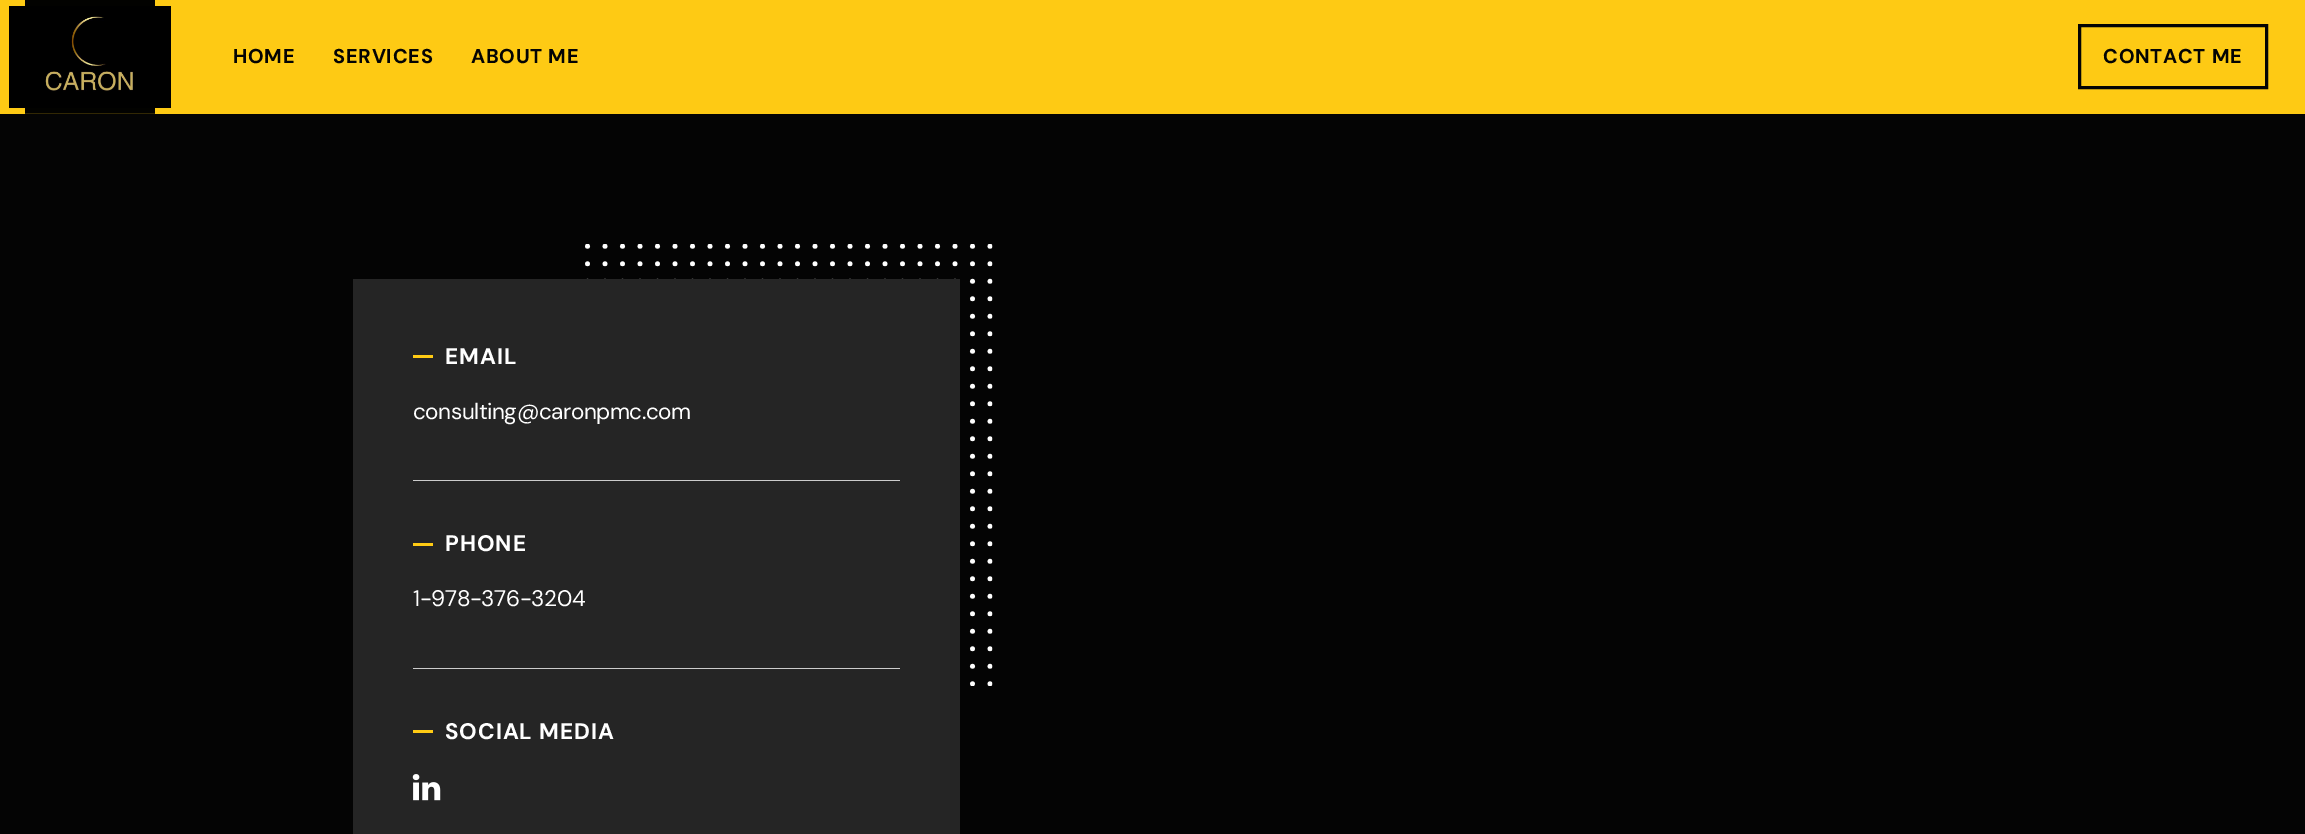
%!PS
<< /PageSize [2305 834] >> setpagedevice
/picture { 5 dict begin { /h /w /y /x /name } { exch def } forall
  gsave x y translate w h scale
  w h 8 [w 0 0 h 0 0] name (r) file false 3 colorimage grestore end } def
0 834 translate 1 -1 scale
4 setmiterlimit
0.016 setgray
0 0 2305 834 rectfill
0.996 0.792 0.078 setrgbcolor
0 0 2305 114 rectfill
0 setgray
9 6 162 102 rectfill
(img1.rgb) 25 0 130 114 picture
/DMSans-Bold [20 0 0 -20 0 0] selectfont
0.016 setgray
233 63 moveto 0.75 0 (HOME) ashow
333 63 moveto 0.75 0 (SERVICES) ashow
471 63 moveto 0.75 0 (ABOUT ME) ashow
3 setlinewidth
2079.5 25.5 187 62 rectstroke
2103 63 moveto 0.75 0 (CONTACT ME) ashow
(img3.rgb) 585 244 408 442 picture
0.145 setgray
353 279 607 555 rectfill
1 0.796 0.078 setrgbcolor
413 355 20 3 rectfill
/DMSans-Bold [22.5 0 0 -22.5 0 0] selectfont
1 setgray
445 364 moveto 0.9 0 (EMAIL) ashow
/DMSans-Regular [22.5 0 0 -22.5 0 0] selectfont
413 419 moveto -0.45 0 (consulting@caronpmc.com) ashow
0.8 setgray
413 480 487 1 rectfill
1 0.796 0.078 setrgbcolor
413 543 20 3 rectfill
/DMSans-Bold [22.5 0 0 -22.5 0 0] selectfont
1 setgray
445 551 moveto 0.9 0 (PHONE) ashow
/DMSans-Regular [22.5 0 0 -22.5 0 0] selectfont
413 606 moveto -0.45 0 (1-978-376-3204) ashow
0.8 setgray
413 668 487 1 rectfill
1 0.796 0.078 setrgbcolor
413 730 20 3 rectfill
/DMSans-Bold [22.5 0 0 -22.5 0 0] selectfont
1 setgray
445 739 moveto 0.9 0 (SOCIAL MEDIA) ashow
(img2.rgb) 412 774 29 27 picture
showpage
